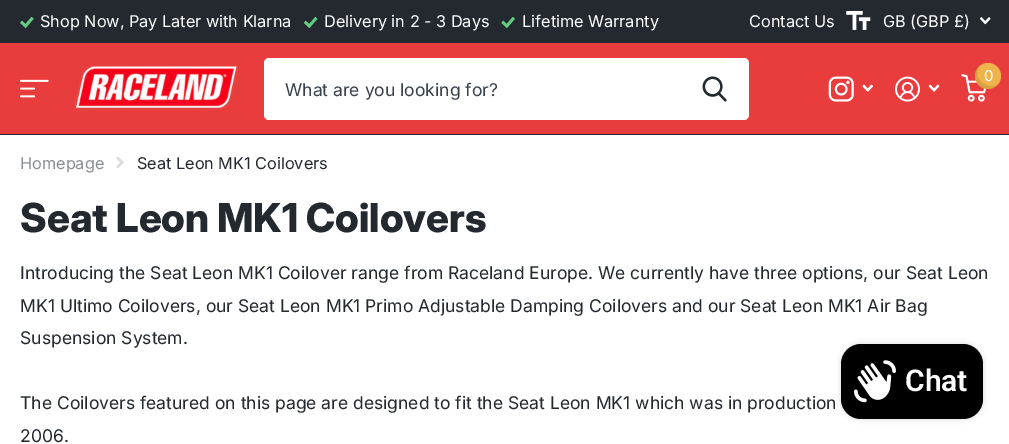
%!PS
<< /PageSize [1009 444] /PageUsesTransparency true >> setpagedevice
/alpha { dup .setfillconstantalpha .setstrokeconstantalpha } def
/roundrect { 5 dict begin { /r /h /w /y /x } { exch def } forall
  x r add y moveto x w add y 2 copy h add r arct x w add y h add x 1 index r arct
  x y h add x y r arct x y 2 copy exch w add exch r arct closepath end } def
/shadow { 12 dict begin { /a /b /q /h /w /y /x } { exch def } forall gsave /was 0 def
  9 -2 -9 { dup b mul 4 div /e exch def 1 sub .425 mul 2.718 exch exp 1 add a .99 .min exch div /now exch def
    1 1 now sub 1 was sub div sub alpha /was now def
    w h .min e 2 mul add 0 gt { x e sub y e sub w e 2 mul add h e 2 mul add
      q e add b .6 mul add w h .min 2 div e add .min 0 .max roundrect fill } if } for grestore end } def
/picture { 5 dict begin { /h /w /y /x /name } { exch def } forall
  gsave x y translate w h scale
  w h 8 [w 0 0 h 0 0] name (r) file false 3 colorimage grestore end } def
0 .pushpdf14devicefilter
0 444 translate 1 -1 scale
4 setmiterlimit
1 setgray
0 0 1009 444 rectfill
0.137 0.161 0.184 setrgbcolor
0 0 1009 43 rectfill
(img1.rgb) 20 16 14 13 picture
/Inter-Regular [16.25 0 0 -16.25 0 0] selectfont
1 setgray
40 27 moveto (Shop Now, Pay Later with Klarna) show
(img2.rgb) 304 16 14 13 picture
324 27 moveto (Delivery in 2 - 3 Days) show
(img3.rgb) 501 16 14 13 picture
522 27 moveto (Lifetime Warranty) show
749 27 moveto (Contact Us) show
(img4.rgb) 846 10 25 20 picture
883 27 moveto (GB \(GBP £\)) show
(img5.rgb) 980 17 11 8 picture
0.914 0.239 0.239 setrgbcolor
0 43 1009 91 rectfill
0.137 0.161 0.184 setrgbcolor
0 134 1009 1 rectfill
(img6.rgb) 74 65 164 45 picture
(img7.rgb) 828 76 26 26 picture
(img8.rgb) 862 84 11 8 picture
(img9.rgb) 895 76 25 26 picture
(img10.rgb) 928 84 12 8 picture
(img11.rgb) 961 74 26 28 picture
0.937 0.702 0.298 setrgbcolor
newpath 988 76 13 0 360 arc closepath fill
0.1 alpha
0 setgray
newpath 998.5 84 moveto 987.5 91.5 972 79 979 66.5 curveto 974 71.5 973.5 80 979 85 curveto 984.5 90.5 993.5 90 998.5 84 curveto closepath fill
/Inter-Regular [15 0 0 -15 0 0] selectfont
1 alpha
1 setgray
984 81 moveto (0) show
(img12.rgb) 20 79 29 19 picture
264 58 485 62 5 roundrect fill
/Inter-Regular [17.5 0 0 -17.5 0 0] selectfont
0.224 0.259 0.298 setrgbcolor
285 96 moveto (What are you looking for?) show
(img13.rgb) 702 76 25 26 picture
/Inter-Regular [16.25 0 0 -16.25 0 0] selectfont
0.541 0.557 0.569 setrgbcolor
20 169 moveto (Homepage) show
(img14.rgb) 116 157 8 11 picture
0.137 0.161 0.184 setrgbcolor
137 169 moveto (Seat Leon MK1 Coilovers) show
/Inter-ExtraBold [40 0 0 -40 0 0] selectfont
20 232 moveto (Seat Leon MK1 Coilovers) show
/Inter-Regular [17.5 0 0 -17.5 0 0] selectfont
20 279 moveto (Introducing the Seat Leon MK1 Coilover range from Raceland Europe. We currently have three options, our Seat Leon) show
20 312 moveto (MK1 Ultimo Coilovers, our Seat Leon MK1 Primo Adjustable Damping Coilovers and our Seat Leon MK1 Air Bag) show
20 344 moveto (Suspension System.) show
20 409 moveto (The Coilovers featured on this page are designed to fit the Seat Leon MK1 which was in production) show
20 442 moveto (2006.) show
0 setgray
841 344 142 75 20 3 0.15 shadow
841 344 142 75 20 roundrect fill
(img15.rgb) 854 360 42 43 picture
/Roboto-SemiBold [30 0 0 -30 0 0] selectfont
1 setgray
905 391 moveto (Chat) show
.poppdf14devicefilter showpage
